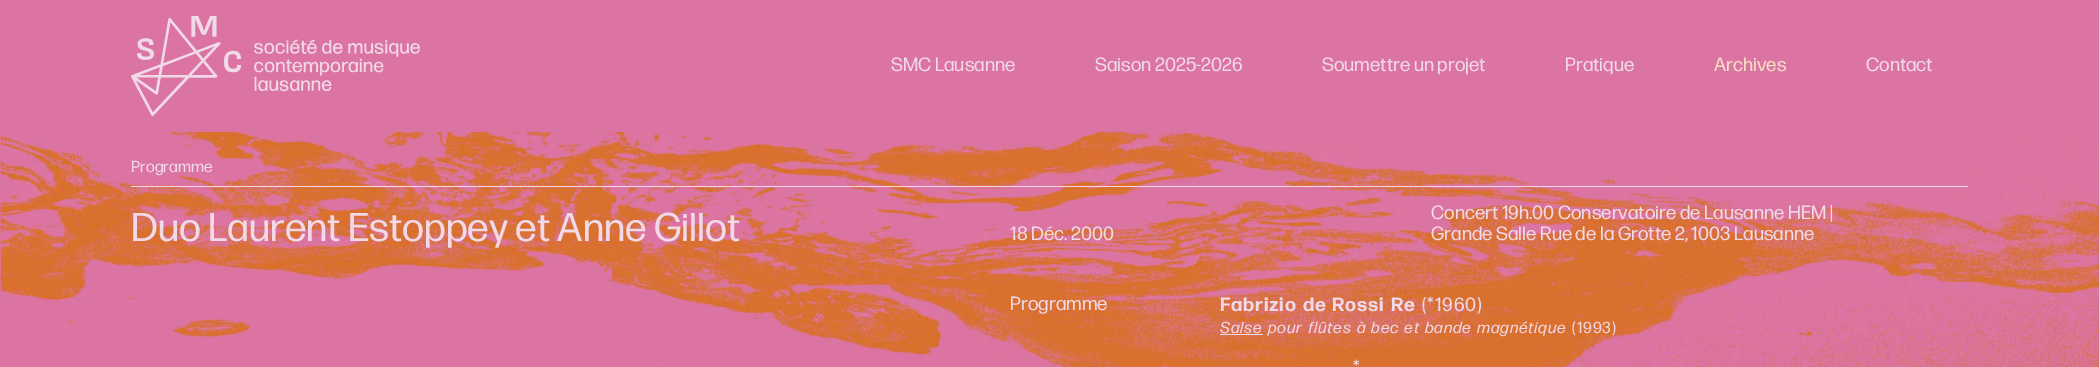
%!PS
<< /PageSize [2099 367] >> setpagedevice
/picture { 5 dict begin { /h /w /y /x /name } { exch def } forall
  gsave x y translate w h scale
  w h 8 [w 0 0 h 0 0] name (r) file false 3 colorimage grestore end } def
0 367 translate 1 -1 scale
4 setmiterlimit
1 setgray
0 0 2099 367 rectfill
(img1.rgb) 0 132 2099 235 picture
0.859 0.455 0.639 setrgbcolor
0 0 2099 132 rectfill
(img2.rgb) 131 16 289 100 picture
/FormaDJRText-Regular [19.2 0 0 -19.2 0 0] selectfont
0.945 0.851 0.914 setrgbcolor
891 71 moveto (SMC Lausanne) show
1095 71 moveto (Saison 2025-2026) show
1322 71 moveto (Soumettre un projet) show
1565 71 moveto (Pratique) show
0.961 0.878 0.776 setrgbcolor
1714 71 moveto (Archives) show
0.945 0.851 0.914 setrgbcolor
1866 71 moveto (Contact) show
/FormaDJRText-Regular [16 0 0 -16 0 0] selectfont
131 172 moveto (Programme) show
131 186 1837 1 rectfill
/FormaDJRText-Regular [40 0 0 -40 0 0] selectfont
131 241 moveto (Duo Laurent Estoppey et Anne Gillot) show
/FormaDJRText-Regular [19.2 0 0 -19.2 0 0] selectfont
1010 240 moveto (18 Déc. 2000) show
1431 219 moveto (Concert 19h.00 Conservatoire de Lausanne HEM |) show
1431 240 moveto (Grande Salle Rue de la Grotte 2, 1003 Lausanne) show
1010 310 moveto (Programme) show
/FormaDJRText-Bold [19.2 0 0 -19.2 0 0] selectfont
1220 311 moveto 1.5 0 32 0.8 0 (Fabrizio de Rossi Re) awidthshow
/FormaDJRText-Regular [19.2 0 0 -19.2 0 0] selectfont
1422 311 moveto 0.8 0 (\(*1960\)) ashow
/FormaDJRText-Italic [16 0 0 -16 0 0] selectfont
1220 333 moveto 0.8 0 (Salse) ashow
1220 334 43 1 rectfill
1268 333 moveto 1.5 0 32 0.8 0 (pour flûtes à bec et bande magnétique) awidthshow
/FormaDJRText-Regular [16 0 0 -16 0 0] selectfont
1572 333 moveto 0.8 0 (\(1993\)) ashow
/FormaDJRText-Regular [19.2 0 0 -19.2 0 0] selectfont
1353 374 moveto 0.8 0 (*) ashow
showpage
